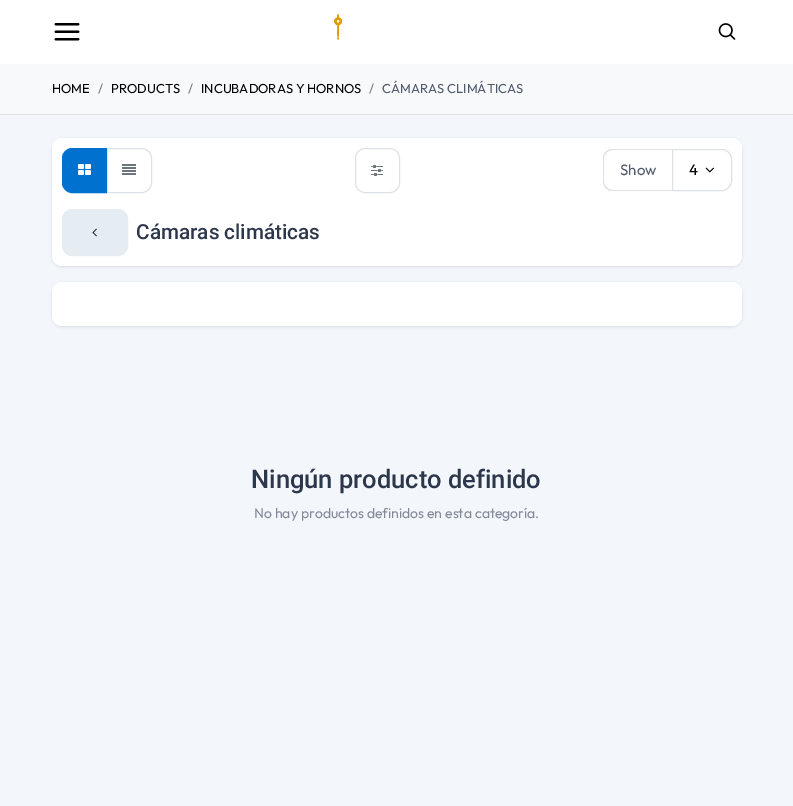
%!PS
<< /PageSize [793 806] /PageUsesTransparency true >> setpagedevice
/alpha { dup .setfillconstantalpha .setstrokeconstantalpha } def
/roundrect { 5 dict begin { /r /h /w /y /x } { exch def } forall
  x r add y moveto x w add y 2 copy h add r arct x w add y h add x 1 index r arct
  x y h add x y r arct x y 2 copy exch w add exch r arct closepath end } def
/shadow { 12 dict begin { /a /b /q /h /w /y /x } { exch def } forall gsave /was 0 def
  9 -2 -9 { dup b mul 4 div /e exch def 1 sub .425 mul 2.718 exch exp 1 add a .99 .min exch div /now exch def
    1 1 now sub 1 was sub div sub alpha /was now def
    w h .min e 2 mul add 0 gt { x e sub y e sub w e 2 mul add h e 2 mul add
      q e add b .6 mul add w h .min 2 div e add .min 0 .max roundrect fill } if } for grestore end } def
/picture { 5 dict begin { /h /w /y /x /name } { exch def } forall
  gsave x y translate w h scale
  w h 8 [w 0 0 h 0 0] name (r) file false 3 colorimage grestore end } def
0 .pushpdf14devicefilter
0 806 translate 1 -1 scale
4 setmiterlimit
1 setgray
0 0 793 806 rectfill
(img1.rgb) 54 23 26 18 picture
(img2.rgb) 333 14 9 26 picture
(img3.rgb) 718 23 18 17 picture
0.953 0.969 0.988 setrgbcolor
0 115 793 691 rectfill
0.973 0.976 0.98 setrgbcolor
0 64 793 50 rectfill
0.871 0.886 0.902 setrgbcolor
0 114 793 1 rectfill
/Outfit-Regular [13 0 0 -13 0 0] selectfont
0 setgray
52 93 moveto (HOME) show
0.424 0.459 0.49 setrgbcolor
98 93 moveto (/) show
0 setgray
111 93 moveto (PRODUCTS) show
0.424 0.459 0.49 setrgbcolor
188 93 moveto (/) show
0 setgray
201 93 moveto (INCUBADORAS Y HORNOS) show
0.424 0.459 0.49 setrgbcolor
369 93 moveto (/) show
0.318 0.349 0.424 setrgbcolor
382 93 moveto (CÁMARAS CLIMÁTICAS) show
0 setgray
52 139 690 128 10 1.5 0.1 shadow
1 setgray
52 138 690 128 10 roundrect fill
0 0.443 0.808 setrgbcolor
newpath 72 148.5 moveto 106.5 148.5 lineto 106.5 192.5 lineto 72 192.5 lineto 67 192.5 62.5 188 62.5 183 curveto 62.5 158 lineto 62.5 153 67 148.5 72 148.5 curveto closepath gsave fill grestore
stroke
(img4.rgb) 78 164 13 11 picture
0.871 0.886 0.902 setrgbcolor
newpath 107.5 148.5 moveto 142 148.5 lineto 147 148.5 151.5 153 151.5 158 curveto 151.5 183 lineto 151.5 188 147 192.5 142 192.5 curveto 107.5 192.5 lineto closepath stroke
(img5.rgb) 122 164 14 11 picture
355.5 148.5 44 44 9.5 roundrect stroke
(img6.rgb) 371 165 12 11 picture
newpath 613 149 moveto 672 149 lineto 672 191 lineto 613 191 lineto 607 191 603 187 603 181 curveto 603 159 lineto 603 153 607 149 613 149 curveto closepath 613 150 moveto 672 150 lineto 672 190 lineto 613 190 lineto 608 190 604 186 604 181 curveto 604 159 lineto 604 154 608 150 613 150 curveto closepath eofill
/Outfit-Regular [15 0 0 -15 0 0] selectfont
0.318 0.349 0.424 setrgbcolor
620 175 moveto (Show) show
0.871 0.886 0.902 setrgbcolor
newpath 672.5 149.5 moveto 722 149.5 lineto 727 149.5 731.5 154 731.5 159 curveto 731.5 181 lineto 731.5 186 727 190.5 722 190.5 curveto 672.5 190.5 lineto closepath stroke
0 setgray
689 175 moveto (4) show
(img7.rgb) 705 167 9 6 picture
0.898 0.929 0.949 setrgbcolor
62.5 209.5 65 46 9.5 roundrect gsave fill grestore
stroke
(img8.rgb) 92 228 5 9 picture
/Roboto-Medium [20.75 0 0 -20.75 0 0] selectfont
0.176 0.216 0.294 setrgbcolor
136 239 moveto (Cámaras climáticas) show
gsave
newpath 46 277 moveto 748 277 lineto 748 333 lineto 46 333 lineto closepath 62 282 moveto 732 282 lineto 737.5 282 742 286.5 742 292 curveto 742 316 lineto 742 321.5 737.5 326 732 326 curveto 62 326 lineto 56.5 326 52 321.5 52 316 curveto 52 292 lineto 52 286.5 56.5 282 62 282 curveto closepath eoclip newpath
0 setgray
52 283 690 44 10 1.5 0.1 shadow
grestore
1 setgray
52 282 690 44 10 roundrect fill
/Roboto-Medium [25.5 0 0 -25.5 0 0] selectfont
0.176 0.216 0.294 setrgbcolor
251 488 moveto (Ningún producto definido) show
/Outfit-Regular [14 0 0 -14 0 0] selectfont
0.51 0.533 0.592 setrgbcolor
254 518 moveto (No hay productos definidos en esta categoría.) show
.poppdf14devicefilter showpage
